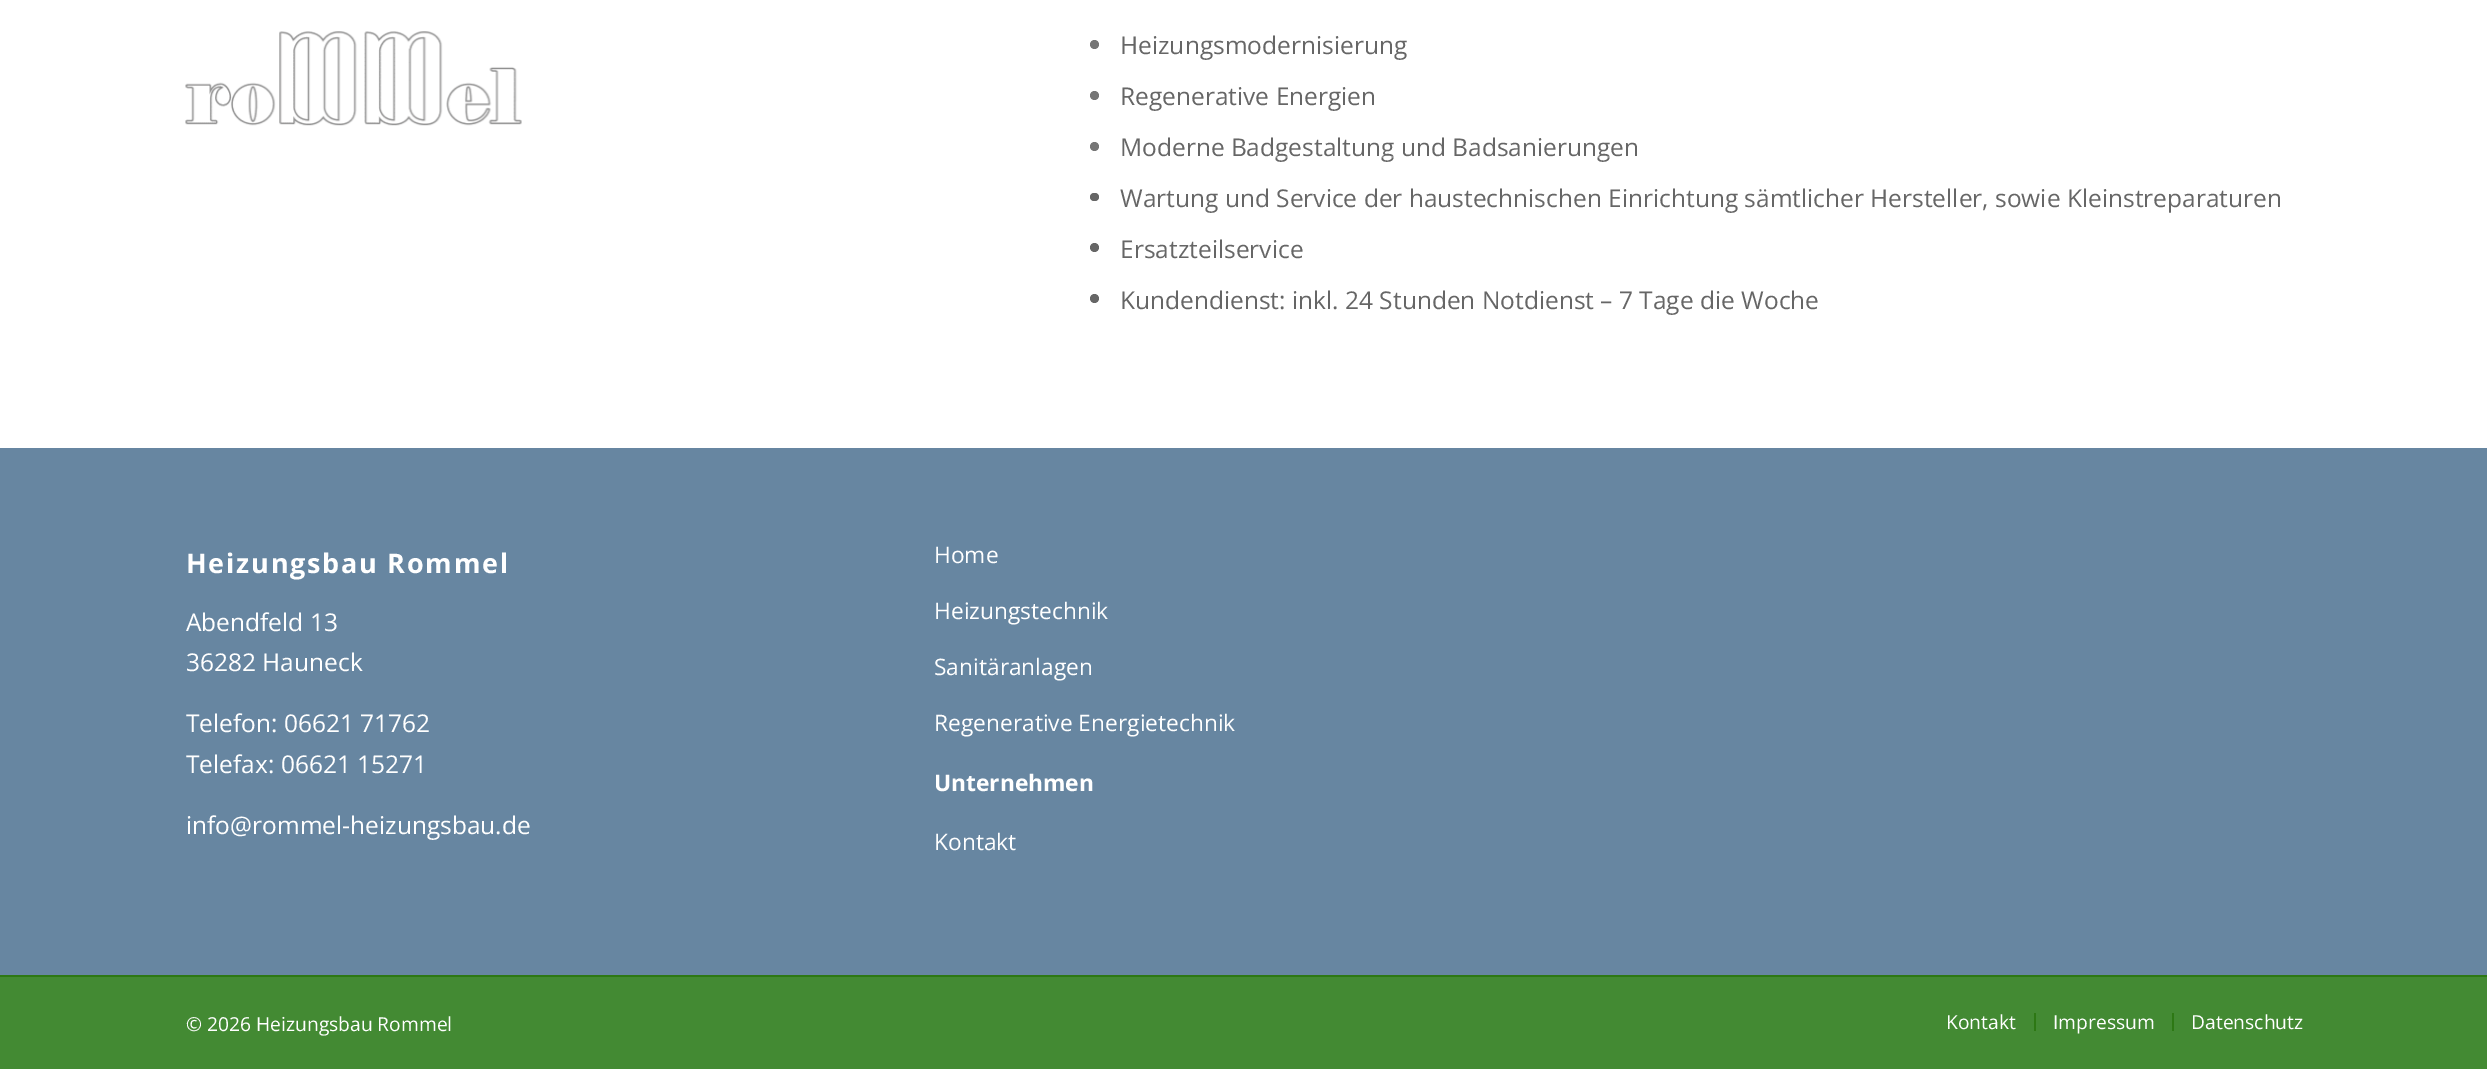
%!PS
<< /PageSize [2487 1069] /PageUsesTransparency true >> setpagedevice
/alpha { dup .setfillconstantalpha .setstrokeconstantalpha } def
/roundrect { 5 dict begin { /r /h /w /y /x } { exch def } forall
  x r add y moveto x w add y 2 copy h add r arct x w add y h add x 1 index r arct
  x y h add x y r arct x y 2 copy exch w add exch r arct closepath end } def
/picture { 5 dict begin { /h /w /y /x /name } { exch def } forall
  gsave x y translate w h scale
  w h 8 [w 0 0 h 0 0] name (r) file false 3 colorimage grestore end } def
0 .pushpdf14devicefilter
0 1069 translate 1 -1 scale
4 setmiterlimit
1 setgray
0 0 2487 1069 rectfill
0.4 setgray
newpath 1094.5 44.5 4.5 0 360 arc closepath fill
newpath 1094.5 95.5 4.5 0 360 arc closepath fill
newpath 1094.5 146.5 4.5 0 360 arc closepath fill
0.1 alpha
1 setgray
1090 35 547 123 rectfill
/OpenSans-Regular [24.5 0 0 -24.5 0 0] selectfont
1 alpha
0.4 setgray
1120 156 moveto (Moderne Badgestaltung und Badsanierungen) show
0.25 alpha
1 setgray
1148 156 472 2 rectfill
1 alpha
(img1.rgb) 185 31 337 95 picture
0.4 setgray
1120 54 moveto (Heizungsmodernisierung) show
1120 105 moveto (Regenerative Energien) show
1090 193 9 8 4 roundrect fill
1120 207 moveto (Wartung und Service der haustechnischen Einrichtung sämtlicher Hersteller, sowie Kleinstreparaturen) show
newpath 1094.5 247.5 4.5 0 360 arc closepath fill
1120 258 moveto (Ersatzteilservice) show
newpath 1094.5 298.5 4.5 0 360 arc closepath fill
1120 309 moveto (Kundendienst: inkl. 24 Stunden Notdienst – 7 Tage die Woche) show
0.404 0.525 0.631 setrgbcolor
0 448 2487 527 rectfill
/OpenSans-Bold [27 0 0 -27 0 0] selectfont
1 setgray
186 573 moveto 1.75 0 (Heizungsbau Rommel) ashow
/OpenSans-Regular [24.5 0 0 -24.5 0 0] selectfont
186 631 moveto (Abendfeld 13) show
186 671 moveto (36282 Hauneck) show
gsave
186 529 621 337 rectclip
186 732 moveto (Telefon: 06621 71762) show
186 773 moveto (Telefax: 06621 15271) show
grestore
186 834 moveto (info@rommel-heizungsbau.de) show
/OpenSans-Regular [22.75 0 0 -22.75 0 0] selectfont
934 563 moveto (Home) show
934 619 moveto (Heizungstechnik) show
934 675 moveto (Sanitäranlagen) show
934 731 moveto (Regenerative Energietechnik) show
/OpenSans-Bold [22.75 0 0 -22.75 0 0] selectfont
934 791 moveto (Unternehmen) show
/OpenSans-Regular [22.75 0 0 -22.75 0 0] selectfont
934 850 moveto (Kontakt) show
0.263 0.541 0.2 setrgbcolor
0 977 2487 92 rectfill
0.176 0.471 0.078 setrgbcolor
0 975 2487 2 rectfill
/OpenSans-Regular [19.25 0 0 -19.25 0 0] selectfont
1 setgray
186 1031 moveto (© 2026 Heizungsbau Rommel) show
1946 1029 moveto (Kontakt) show
0.176 0.471 0.078 setrgbcolor
2034 1013 2 18 rectfill
1 setgray
2053 1029 moveto (Impressum) show
0.176 0.471 0.078 setrgbcolor
2172 1013 2 18 rectfill
1 setgray
2191 1029 moveto (Datenschutz) show
.poppdf14devicefilter showpage
